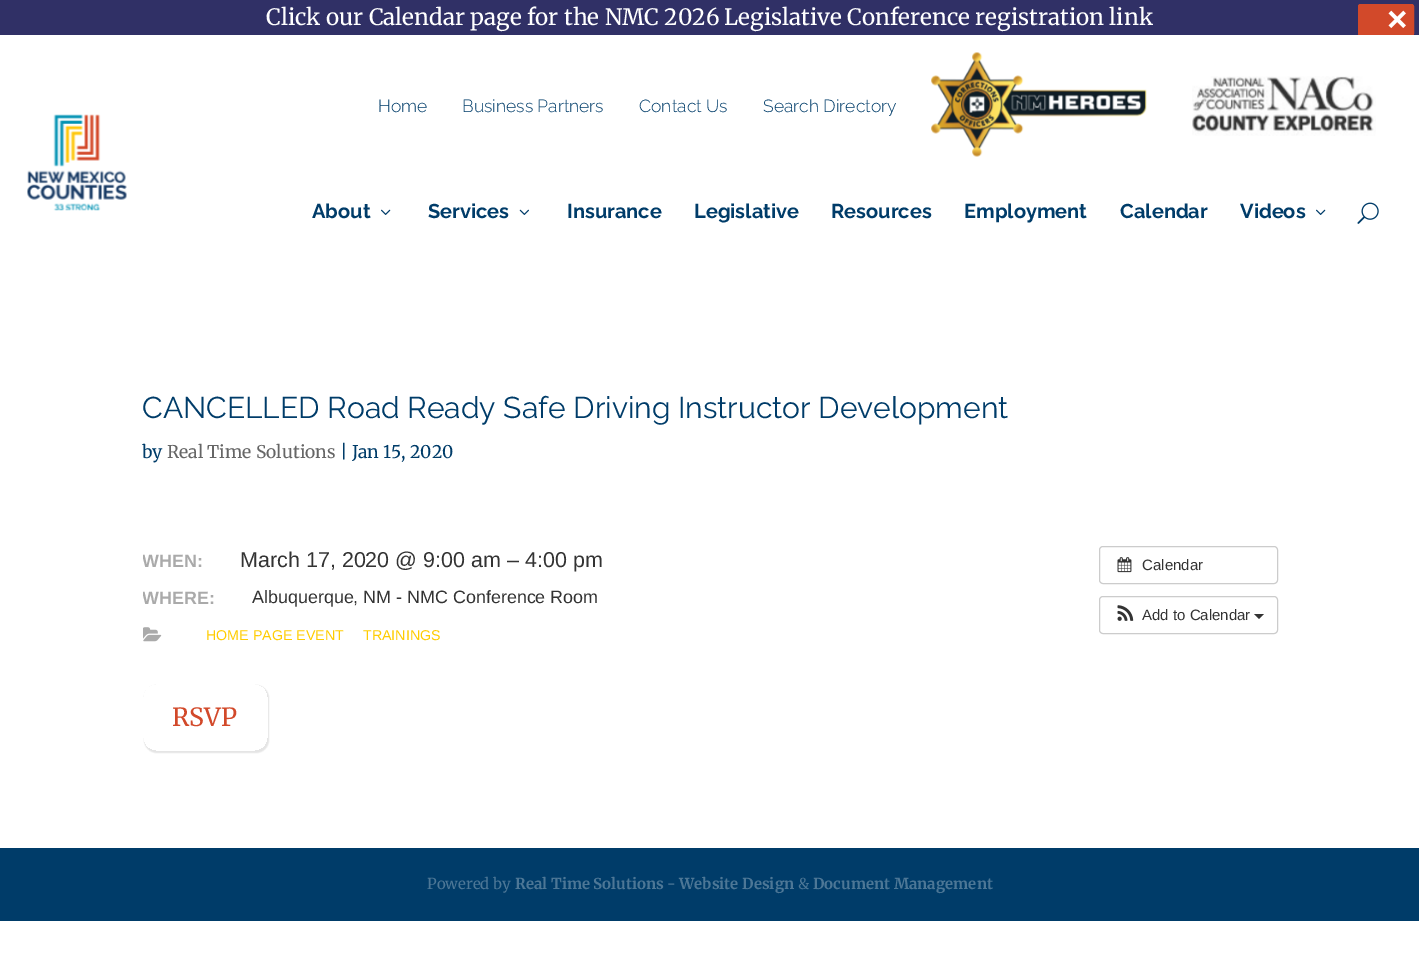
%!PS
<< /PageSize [1419 956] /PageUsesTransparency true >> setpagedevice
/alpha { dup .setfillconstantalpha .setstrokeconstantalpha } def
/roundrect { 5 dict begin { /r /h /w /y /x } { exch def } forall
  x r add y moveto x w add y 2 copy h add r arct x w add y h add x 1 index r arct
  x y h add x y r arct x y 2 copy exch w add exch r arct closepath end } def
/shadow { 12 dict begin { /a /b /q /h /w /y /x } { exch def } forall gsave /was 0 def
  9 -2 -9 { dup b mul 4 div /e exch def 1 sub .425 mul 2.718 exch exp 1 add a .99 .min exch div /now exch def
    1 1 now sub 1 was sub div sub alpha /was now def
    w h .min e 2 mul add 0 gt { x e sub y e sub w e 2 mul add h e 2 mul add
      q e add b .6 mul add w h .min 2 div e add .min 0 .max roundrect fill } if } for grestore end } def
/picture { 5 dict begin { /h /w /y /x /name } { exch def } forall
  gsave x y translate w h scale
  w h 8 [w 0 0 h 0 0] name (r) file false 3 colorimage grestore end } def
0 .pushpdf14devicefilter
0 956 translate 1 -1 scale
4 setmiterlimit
1 setgray
0 0 1419 956 rectfill
0.188 0.188 0.4 setrgbcolor
0 0 1419 35 rectfill
/Merriweather-Regular [22.5 0 0 -22.5 0 0] selectfont
1 setgray
266 25 moveto (Click our Calendar page for the NMC 2026 Legislative Conference registration link) show
gsave
0 0 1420 35 rectclip
0.824 0.286 0.165 setrgbcolor
1358.5 4.5 55 31 2 roundrect gsave fill grestore
stroke
grestore
/LiberationSans-Bold [35 0 0 -35 0 0] selectfont
1387 31 moveto (×) show
/Raleway-Light [17.5 0 0 -17.5 0 0] selectfont
0 0.235 0.412 setrgbcolor
378 112 moveto (Home) show
462 112 moveto (Business Partners) show
639 112 moveto (Contact Us) show
763 112 moveto (Search Directory) show
(img1.rgb) 931 52 216 105 picture
(img2.rgb) 1192 76 184 60 picture
(img3.rgb) 27 114 100 97 picture
/Raleway-Bold [20 0 0 -20 0 0] selectfont
312 218 moveto (About) show
(img4.rgb) 381 209 10 6 picture
428 218 moveto (Services) show
(img5.rgb) 519 209 10 6 picture
567 218 moveto (Insurance) show
694 218 moveto (Legislative) show
831 218 moveto (Resources) show
964 218 moveto (Employment) show
1120 218 moveto (Calendar) show
1240 218 moveto (Videos) show
(img4.rgb) 1316 209 10 6 picture
(img6.rgb) 1357 202 22 22 picture
/Raleway-Regular [30 0 0 -30 0 0] selectfont
142 418 moveto (CANCELLED Road Ready Safe Driving Instructor Development) show
/Merriweather-Regular [17.5 0 0 -17.5 0 0] selectfont
142 458 moveto (by) show
0.4 setgray
167 458 moveto (Real Time Solutions) show
0 0.235 0.412 setrgbcolor
340 458 moveto (| Jan 15, 2020) show
gsave
143 546 943 110 rectclip
/LiberationSans-Bold [17.9 0 0 -17.9 0 0] selectfont
0.667 setgray
142 567 moveto (WHEN:) show
grestore
/LiberationSans-Regular [21.5 0 0 -21.5 0 0] selectfont
0.2 setgray
240 567 moveto (March 17, 2020 @ 9:00 am – 4:00 pm) show
gsave
143 546 943 110 rectclip
/LiberationSans-Bold [17.9 0 0 -17.9 0 0] selectfont
0.667 setgray
142 604 moveto (WHERE:) show
grestore
/LiberationSans-Regular [17.9 0 0 -17.9 0 0] selectfont
252 603 moveto (Albuquerque, NM - NMC Conference Room) show
(img7.rgb) 143 627 19 15 picture
/LiberationSans-Regular [14.25 0 0 -14.25 0 0] selectfont
1 0.8 0 setrgbcolor
206 640 moveto (HOME PAGE EVENT) show
363 640 moveto (TRAININGS) show
0.8 setgray
1099.5 546.5 178 37 3.5 roundrect stroke
(img8.rgb) 1117 557 15 16 picture
/LiberationSans-Regular [15 0 0 -15 0 0] selectfont
0.2 setgray
1142 570 moveto (Calendar) show
0.8 setgray
1099.5 596.5 178 37 3.5 roundrect stroke
(img9.rgb) 1117 605 17 16 picture
0.2 setgray
1142 620 moveto (Add to Calendar) show
newpath 1254 614 moveto 1264 614 lineto 1259 619 lineto closepath fill
gsave
newpath 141 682 moveto 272 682 lineto 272 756 lineto 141 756 lineto closepath 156 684 moveto 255 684 lineto 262 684 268 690 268 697 curveto 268 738 lineto 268 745 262 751 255 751 curveto 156 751 lineto 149 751 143 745 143 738 curveto 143 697 lineto 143 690 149 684 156 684 curveto closepath eoclip newpath
0 setgray
144 685 125 68 13 0.5 0.1 shadow
grestore
/Merriweather-Regular [25 0 0 -25 0 0] selectfont
0.824 0.286 0.165 setrgbcolor
172 726 moveto (RSVP) show
0 0.235 0.412 setrgbcolor
0 848 1419 73 rectfill
/Merriweather-Regular [15 0 0 -15 0 0] selectfont
0.302 0.467 0.588 setrgbcolor
427 889 moveto (Powered by) show
/Merriweather-Bold [15 0 0 -15 0 0] selectfont
515 889 moveto (Real Time Solutions) show
/Merriweather-Regular [15 0 0 -15 0 0] selectfont
667 889 moveto (-) show
/Merriweather-Bold [15 0 0 -15 0 0] selectfont
679 889 moveto (Website Design) show
/Merriweather-Regular [15 0 0 -15 0 0] selectfont
798 889 moveto (&) show
/Merriweather-Bold [15 0 0 -15 0 0] selectfont
813 889 moveto (Document Management) show
.poppdf14devicefilter showpage
